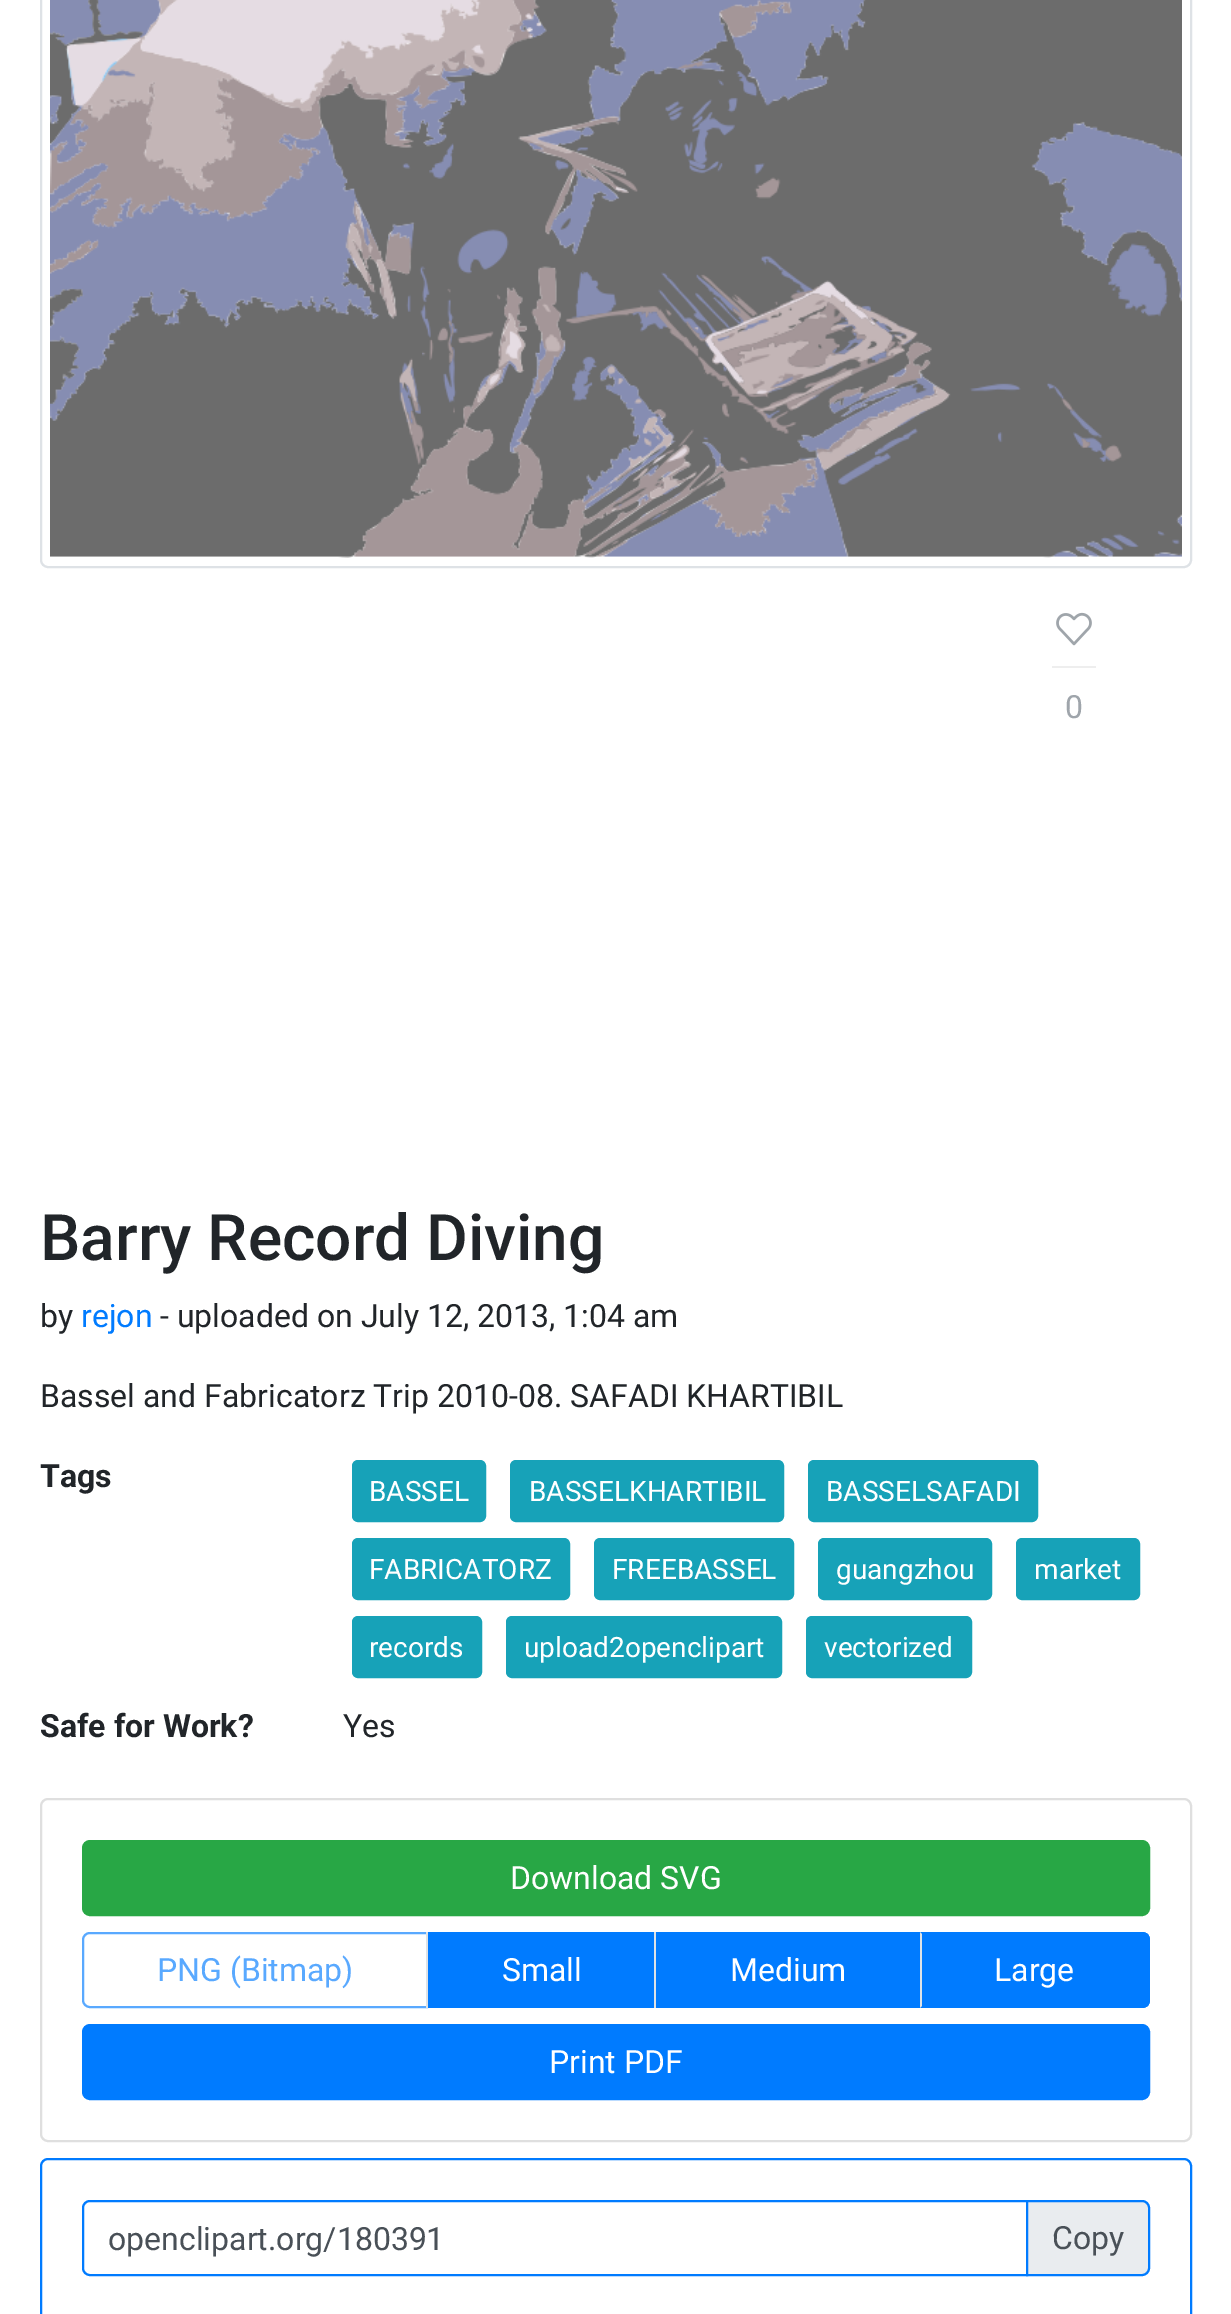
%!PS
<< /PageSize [1231 2314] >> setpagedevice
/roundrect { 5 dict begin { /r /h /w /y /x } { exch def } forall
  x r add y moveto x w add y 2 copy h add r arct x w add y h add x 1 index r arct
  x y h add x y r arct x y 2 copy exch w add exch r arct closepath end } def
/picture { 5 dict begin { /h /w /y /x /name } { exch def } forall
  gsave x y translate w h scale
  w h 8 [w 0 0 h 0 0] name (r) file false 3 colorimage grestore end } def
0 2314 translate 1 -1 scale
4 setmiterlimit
1 setgray
0 0 1231 2314 rectfill
0.871 0.886 0.902 setrgbcolor
2 setlinewidth
41 -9 1150 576 7 roundrect stroke
(img1.rgb) 50 0 1132 558 picture
(img2.rgb) 1056 612 36 34 picture
0.933 setgray
1052 666 44 2 rectfill
/Roboto-Regular [32 0 0 -32 0 0] selectfont
0.624 0.647 0.671 setrgbcolor
1065 718 moveto (0) show
/Roboto-Medium [64 0 0 -64 0 0] selectfont
0.129 0.145 0.161 setrgbcolor
40 1260 moveto (Barry Record Diving) show
/Roboto-Regular [32 0 0 -32 0 0] selectfont
40 1327 moveto (by) show
0 0.482 1 setrgbcolor
81 1327 moveto (rejon) show
0.129 0.145 0.161 setrgbcolor
160 1327 moveto (- uploaded on July 12, 2013, 1:04 am) show
40 1407 moveto (Bassel and Fabricatorz Trip 2010-08. SAFADI KHARTIBIL) show
/Roboto-Bold [32 0 0 -32 0 0] selectfont
40 1487 moveto (Tags) show
0.09 0.635 0.722 setrgbcolor
353 1461 132 60 5 roundrect gsave fill grestore
stroke
/Roboto-Regular [28 0 0 -28 0 0] selectfont
1 setgray
369 1501 moveto (BASSEL) show
0.09 0.635 0.722 setrgbcolor
511 1461 272 60 5 roundrect gsave fill grestore
stroke
1 setgray
529 1501 moveto (BASSELKHARTIBIL) show
0.09 0.635 0.722 setrgbcolor
809 1461 228 60 5 roundrect gsave fill grestore
stroke
1 setgray
826 1501 moveto (BASSELSAFADI) show
0.09 0.635 0.722 setrgbcolor
353 1539 216 60 5 roundrect gsave fill grestore
stroke
1 setgray
369 1579 moveto (FABRICATORZ) show
0.09 0.635 0.722 setrgbcolor
595 1539 198 60 5 roundrect gsave fill grestore
stroke
1 setgray
612 1579 moveto (FREEBASSEL) show
0.09 0.635 0.722 setrgbcolor
819 1539 172 60 5 roundrect gsave fill grestore
stroke
1 setgray
836 1579 moveto (guangzhou) show
0.09 0.635 0.722 setrgbcolor
1017 1539 122 60 5 roundrect gsave fill grestore
stroke
1 setgray
1034 1579 moveto (market) show
0.09 0.635 0.722 setrgbcolor
353 1617 128 60 5 roundrect gsave fill grestore
stroke
1 setgray
369 1657 moveto (records) show
0.09 0.635 0.722 setrgbcolor
507 1617 274 60 5 roundrect gsave fill grestore
stroke
1 setgray
524 1657 moveto (upload2openclipart) show
0.09 0.635 0.722 setrgbcolor
807 1617 164 60 5 roundrect gsave fill grestore
stroke
1 setgray
824 1657 moveto (vectorized) show
/Roboto-Bold [32 0 0 -32 0 0] selectfont
0.129 0.145 0.161 setrgbcolor
40 1737 moveto (Safe for Work?) show
/Roboto-Regular [32 0 0 -32 0 0] selectfont
343 1737 moveto (Yes) show
0.875 setgray
41 1799 1150 342 7 roundrect stroke
0.157 0.655 0.271 setrgbcolor
83 1841 1066 74 7 roundrect gsave fill grestore
stroke
1 setgray
510 1889 moveto (Download SVG) show
0.349 0.663 1 setrgbcolor
newpath 90 1933 moveto 427 1933 lineto 427 2007 lineto 90 2007 lineto 86 2007 83 2004 83 2000 curveto 83 1940 lineto 83 1936 86 1933 90 1933 curveto closepath stroke
157 1981 moveto (PNG \(Bitmap\)) show
0 0.482 1 setrgbcolor
428 1932 226 76 rectfill
0.871 0.886 0.902 setrgbcolor
426 1932 2 76 rectfill
1 setgray
502 1981 moveto (Small) show
0 0.482 1 setrgbcolor
656 1932 264 76 rectfill
0.871 0.886 0.902 setrgbcolor
654 1932 2 76 rectfill
1 setgray
730 1981 moveto (Medium) show
0 0.482 1 setrgbcolor
newpath 920 1932 moveto 1142 1932 lineto 1146.5 1932 1150 1935.5 1150 1940 curveto 1150 2000 lineto 1150 2004.5 1146.5 2008 1142 2008 curveto 920 2008 lineto closepath fill
newpath 920 1932 moveto 922 1934 lineto 1143 1934 lineto 1146 1936 lineto 1148 1934 lineto 1146 1933 1144 1932 1142 1932 curveto closepath fill
newpath 1150 2000 moveto 1150 1940 lineto 1150 1938 1149 1936 1148 1934 curveto 1146 1936 lineto 1147 1937 1148 1938 1148 1940 curveto 1148 2000 lineto 1148 2002 1147 2003 1146 2004 curveto 1148 2006 lineto 1149 2004 1150 2002 1150 2000 curveto closepath fill
newpath 1142 2008 moveto 1144 2008 1146 2007 1148 2006 curveto 1146 2004 lineto 1143 2006 lineto 922 2006 lineto 920 2008 lineto closepath fill
0.871 0.886 0.902 setrgbcolor
newpath 920 1932 moveto 920 2008 lineto 922 2006 lineto 922 1934 lineto closepath fill
1 setgray
994 1981 moveto (Large) show
0 0.482 1 setrgbcolor
83 2025 1066 74 7 roundrect gsave fill grestore
stroke
1 setgray
549 2073 moveto (Print PDF) show
0 0.482 1 setrgbcolor
41 2159 1150 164 7 roundrect stroke
newpath 90 2201 moveto 1027 2201 lineto 1027 2275 lineto 90 2275 lineto 86 2275 83 2272 83 2268 curveto 83 2208 lineto 83 2204 86 2201 90 2201 curveto closepath stroke
0.286 0.314 0.341 setrgbcolor
108 2250 moveto (openclipart.org/180391) show
0.914 0.925 0.937 setrgbcolor
newpath 1027 2201 moveto 1142 2201 lineto 1146 2201 1149 2204 1149 2208 curveto 1149 2268 lineto 1149 2272 1146 2275 1142 2275 curveto 1027 2275 lineto closepath gsave fill grestore
0 0.482 1 setrgbcolor
stroke
0.286 0.314 0.341 setrgbcolor
1052 2249 moveto (Copy) show
showpage
